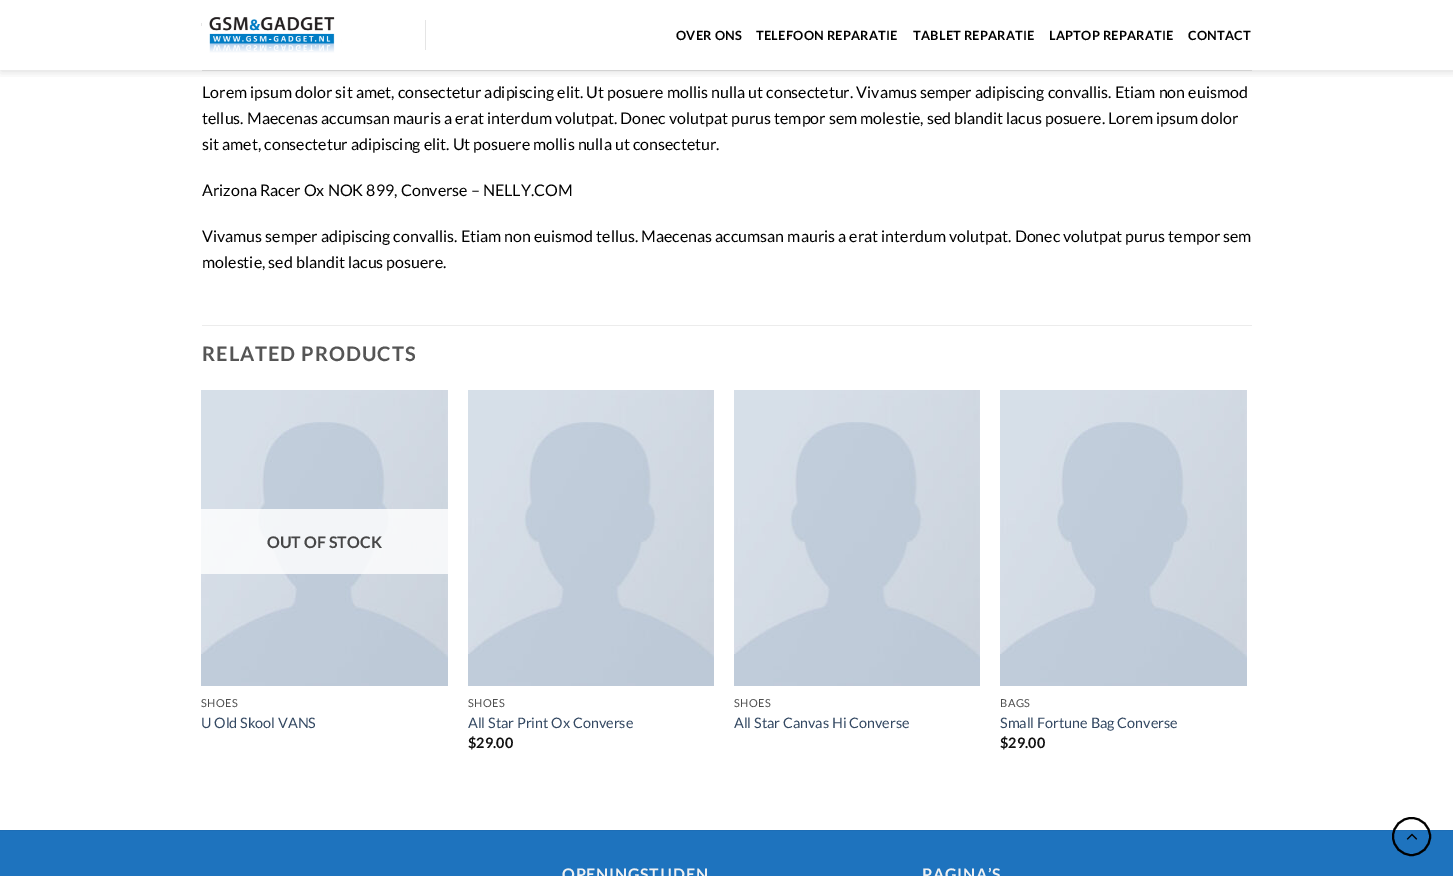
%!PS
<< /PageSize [1453 876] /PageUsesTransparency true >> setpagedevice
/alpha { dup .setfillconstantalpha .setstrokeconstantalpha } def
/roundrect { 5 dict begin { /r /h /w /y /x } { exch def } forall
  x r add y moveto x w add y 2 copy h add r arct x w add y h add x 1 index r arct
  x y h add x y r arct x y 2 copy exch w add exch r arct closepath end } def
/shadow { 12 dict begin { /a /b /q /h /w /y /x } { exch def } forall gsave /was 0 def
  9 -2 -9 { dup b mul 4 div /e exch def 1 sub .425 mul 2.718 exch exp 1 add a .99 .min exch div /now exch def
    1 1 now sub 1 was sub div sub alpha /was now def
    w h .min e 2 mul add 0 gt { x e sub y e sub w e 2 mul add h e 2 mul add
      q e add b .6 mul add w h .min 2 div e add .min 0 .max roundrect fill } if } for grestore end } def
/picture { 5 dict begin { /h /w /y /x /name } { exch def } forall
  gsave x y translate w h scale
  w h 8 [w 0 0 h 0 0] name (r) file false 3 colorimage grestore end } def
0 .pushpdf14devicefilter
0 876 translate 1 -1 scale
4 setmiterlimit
1 setgray
0 0 1453 876 rectfill
0.902 setgray
201 23 1 3 rectfill
gsave
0 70 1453 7 rectclip
0 setgray
1 1 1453 70 0 5 0.15 shadow
grestore
(img1.rgb) 202 17 140 36 picture
0.898 setgray
425 20 1 30 rectfill
/Lato-Bold [12.75 0 0 -12.75 0 0] selectfont
0 setgray
676 40 moveto 0.25 0 (OVER ONS) ashow
756 40 moveto 0.25 0 (TELEFOON REPARATIE) ashow
913 40 moveto 0.25 0 (TABLET REPARATIE) ashow
1049 40 moveto 0.25 0 (LAPTOP REPARATIE) ashow
1188 40 moveto 0.25 0 (CONTACT) ashow
0.827 setgray
202 70 1050 1 rectfill
/Lato-Regular [16 0 0 -16 0 0] selectfont
0 setgray
202 98 moveto (Lorem ipsum dolor sit amet, consectetur adipiscing elit. Ut posuere mollis nulla ut consectetur. Vivamus semper adipiscing convallis. Etiam non euismod) show
202 124 moveto (tellus. Maecenas accumsan mauris a erat interdum volutpat. Donec volutpat purus tempor sem molestie, sed blandit lacus posuere. Lorem ipsum dolor) show
202 150 moveto (sit amet, consectetur adipiscing elit. Ut posuere mollis nulla ut consectetur.) show
202 196 moveto (Arizona Racer Ox NOK 899, Converse – NELLY.COM) show
202 242 moveto (Vivamus semper adipiscing convallis. Etiam non euismod tellus. Maecenas accumsan mauris a erat interdum volutpat. Donec volutpat purus tempor sem) show
202 268 moveto (molestie, sed blandit lacus posuere.) show
0.925 setgray
202 325 1050 1 rectfill
/Lato-Bold [20 0 0 -20 0 0] selectfont
0.333 setgray
202 361 moveto 1 0 (RELATED PRODUCTS) ashow
(img2.rgb) 201 390 247 296 picture
0.81 alpha
1 setgray
201 509 247 65 rectfill
/Lato-Bold [16 0 0 -16 0 0] selectfont
1 alpha
0.275 0.275 0.278 setrgbcolor
267 548 moveto (OUT OF STOCK) show
/Lato-Regular [11 0 0 -11 0 0] selectfont
0.302 setgray
201 707 moveto 0.5 0 (SHOES) ashow
/Lato-Regular [14.4 0 0 -14.4 0 0] selectfont
0.2 0.282 0.384 setrgbcolor
201 728 moveto (U Old Skool VANS) show
(img3.rgb) 468 390 246 296 picture
/Lato-Regular [11 0 0 -11 0 0] selectfont
0.302 setgray
468 707 moveto 0.5 0 (SHOES) ashow
/Lato-Regular [14.4 0 0 -14.4 0 0] selectfont
0.2 0.282 0.384 setrgbcolor
468 728 moveto (All Star Print Ox Converse) show
/Lato-Bold [14.4 0 0 -14.4 0 0] selectfont
0.067 setgray
468 748 moveto ($29.00) show
(img3.rgb) 734 390 246 296 picture
/Lato-Regular [11 0 0 -11 0 0] selectfont
0.302 setgray
734 707 moveto 0.5 0 (SHOES) ashow
/Lato-Regular [14.4 0 0 -14.4 0 0] selectfont
0.2 0.282 0.384 setrgbcolor
734 728 moveto (All Star Canvas Hi Converse) show
(img2.rgb) 1000 390 247 296 picture
/Lato-Regular [11 0 0 -11 0 0] selectfont
0.302 setgray
1000 707 moveto 0.5 0 (BAGS) ashow
/Lato-Regular [14.4 0 0 -14.4 0 0] selectfont
0.2 0.282 0.384 setrgbcolor
1000 728 moveto (Small Fortune Bag Converse) show
/Lato-Bold [14.4 0 0 -14.4 0 0] selectfont
0.067 setgray
1000 748 moveto ($29.00) show
0.118 0.451 0.745 setrgbcolor
0 831 1453 45 rectfill
0.114 0.427 0.71 setrgbcolor
0 830 1453 1 rectfill
0 setgray
2 setlinewidth
newpath 1411.5 836.5 18.5 0 360 arc closepath stroke
(img4.rgb) 1406 833 12 7 picture
/Lato-Bold [16 0 0 -16 0 0] selectfont
0.945 setgray
562 880 moveto 0.75 0 (OPENINGSTIJDEN) ashow
922 880 moveto 0.75 0 (PAGINA’S) ashow
.poppdf14devicefilter showpage
